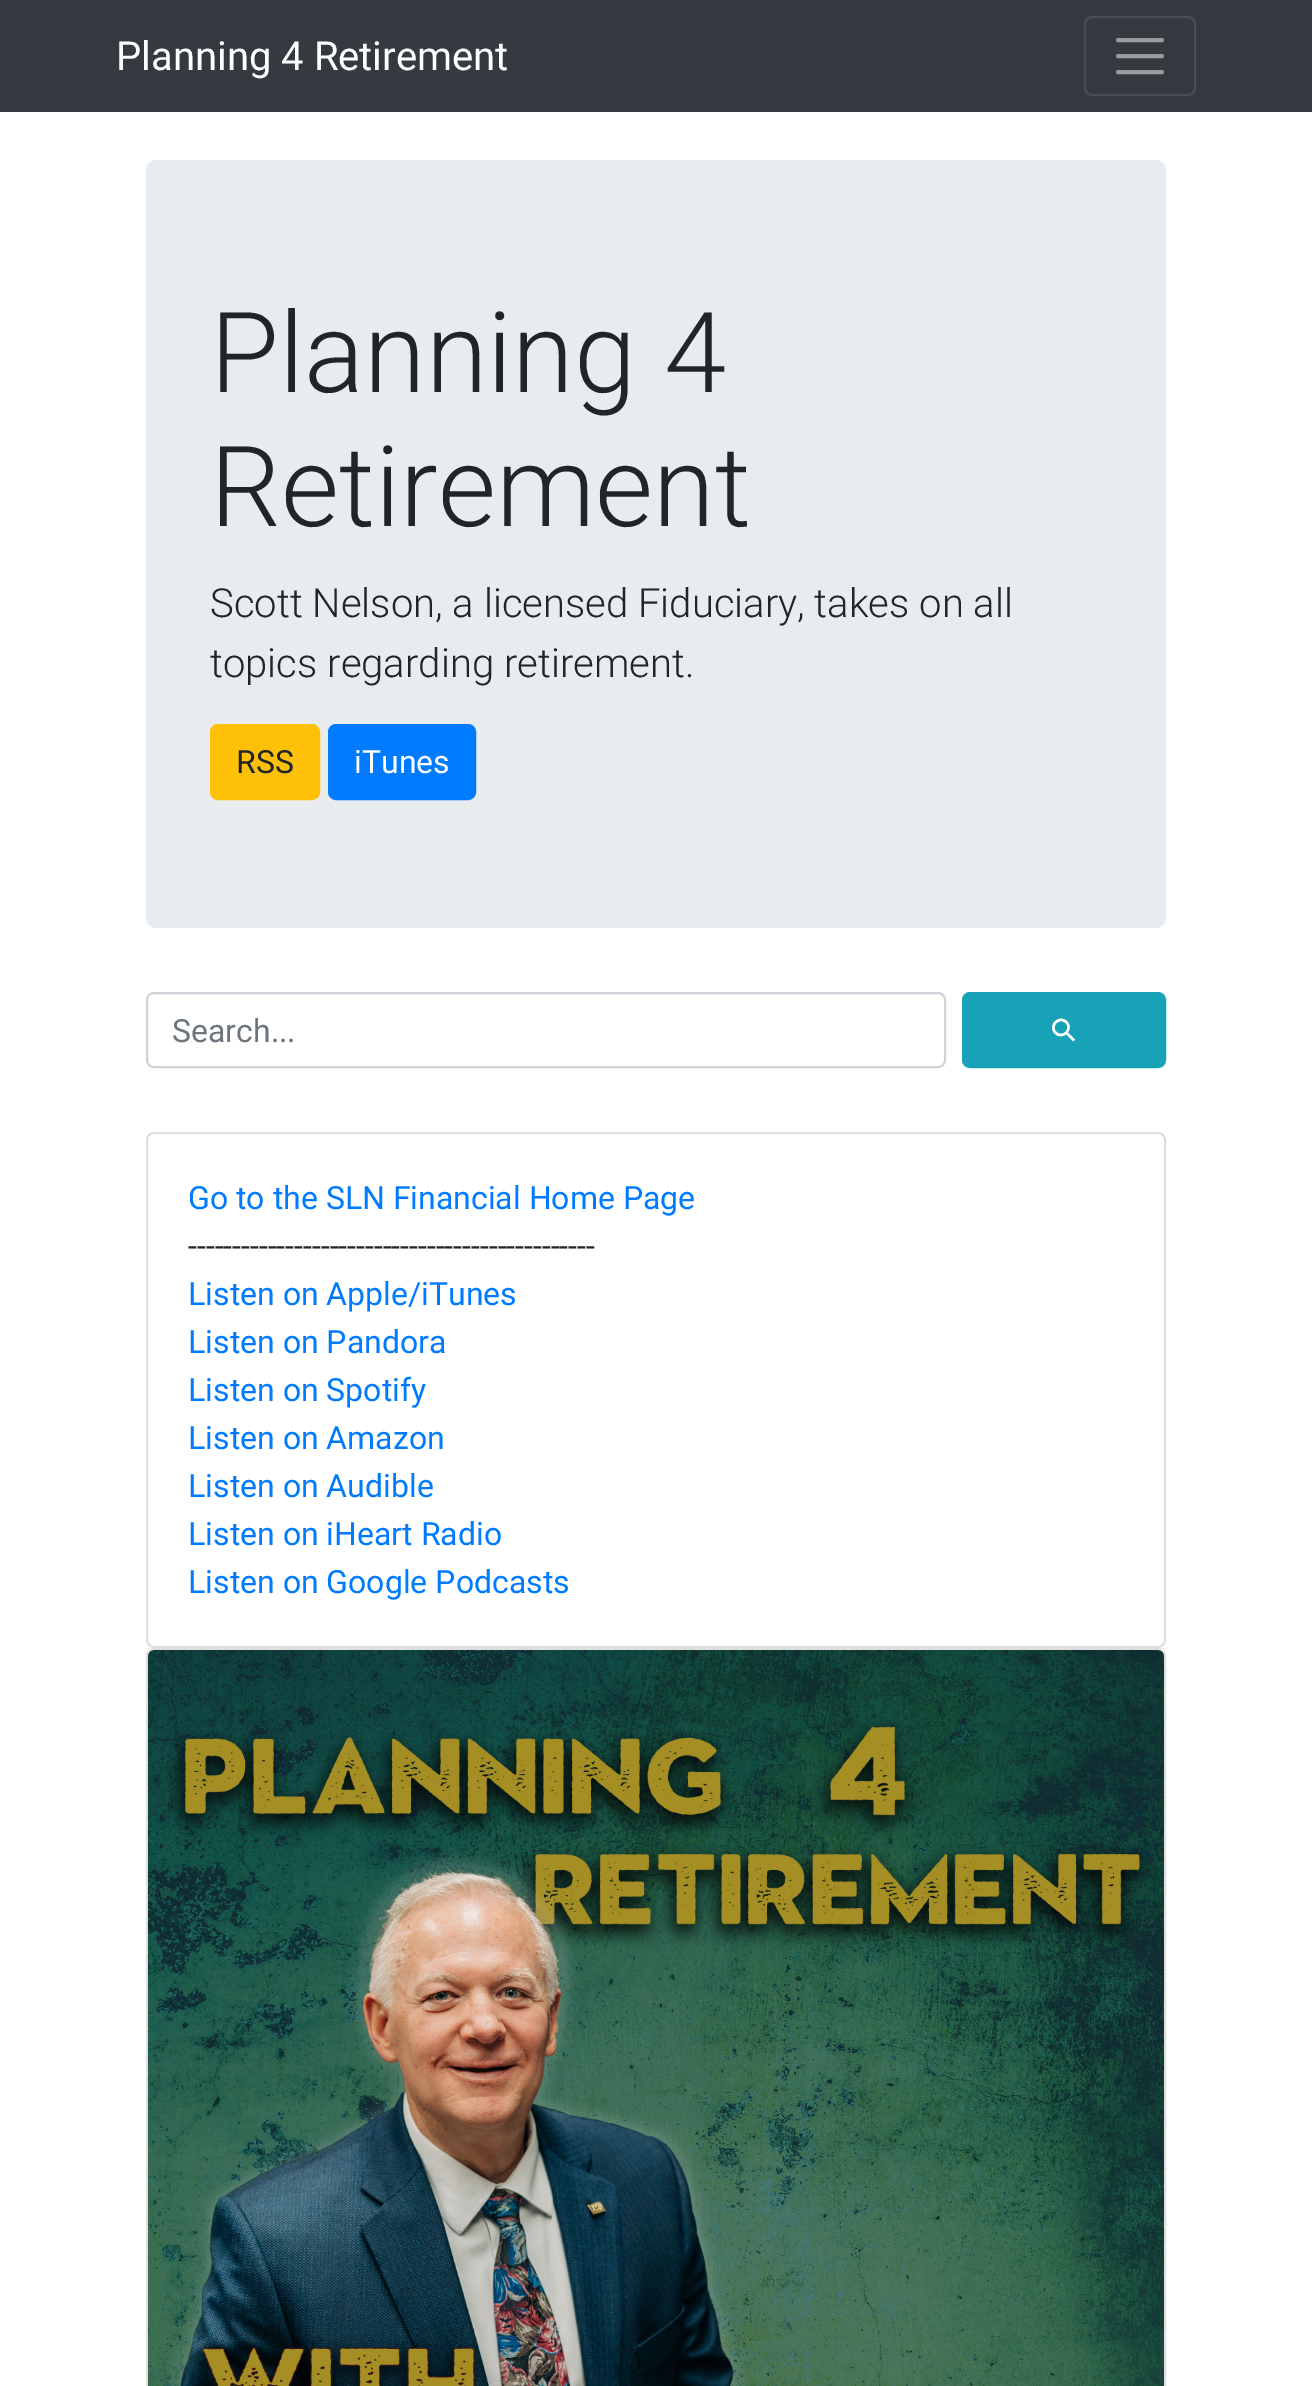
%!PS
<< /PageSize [1312 2386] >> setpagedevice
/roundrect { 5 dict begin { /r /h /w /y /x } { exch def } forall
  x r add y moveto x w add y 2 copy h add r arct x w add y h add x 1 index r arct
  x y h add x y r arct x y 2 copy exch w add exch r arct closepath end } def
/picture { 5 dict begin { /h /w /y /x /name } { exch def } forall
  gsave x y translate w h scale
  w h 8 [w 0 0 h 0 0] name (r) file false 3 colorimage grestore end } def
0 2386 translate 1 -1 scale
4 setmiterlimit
1 setgray
0 0 1312 2386 rectfill
0.204 0.227 0.251 setrgbcolor
0 0 1312 112 rectfill
/Roboto-Regular [40 0 0 -40 0 0] selectfont
1 setgray
116 70 moveto (Planning 4 Retirement) show
0.282 0.306 0.325 setrgbcolor
2 setlinewidth
1085 17 110 78 7 roundrect stroke
0.604 0.616 0.627 setrgbcolor
4 setlinewidth
1 setlinecap
newpath 1118 40 moveto 1162 40 lineto 1118 56 moveto 1162 56 lineto 1118 72 moveto 1162 72 lineto stroke
0.914 0.925 0.937 setrgbcolor
146 160 1020 768 10 roundrect fill
/Roboto-Light [112 0 0 -112 0 0] selectfont
0.129 0.145 0.161 setrgbcolor
210 392 moveto (Planning 4) show
210 526 moveto (Retirement) show
/Roboto-Light [40 0 0 -40 0 0] selectfont
210 617 moveto (Scott Nelson, a licensed Fiduciary, takes on all) show
210 677 moveto (topics regarding retirement.) show
1 0.757 0.027 setrgbcolor
211 725 108 74 7 roundrect gsave fill grestore
2 setlinewidth
0 setlinecap
stroke
/Roboto-Regular [32 0 0 -32 0 0] selectfont
0.129 0.145 0.161 setrgbcolor
236 773 moveto (RSS) show
0 0.482 1 setrgbcolor
329 725 146 74 7 roundrect gsave fill grestore
stroke
1 setgray
354 773 moveto (iTunes) show
0.808 0.831 0.855 setrgbcolor
147 993 798 74 7 roundrect stroke
0.424 0.459 0.49 setrgbcolor
172 1042 moveto (Search...) show
0.09 0.635 0.722 setrgbcolor
963 993 202 74 7 roundrect gsave fill grestore
stroke
/DejaVuSans-Regular [32 0 0 -32 0 0] selectfont
1 setgray
gsave 1063 1046 translate -45 rotate 0 0 moveto (⚲) show grestore
0.875 setgray
147 1133 1018 514 7 roundrect stroke
/Roboto-Regular [32 0 0 -32 0 0] selectfont
0 0.482 1 setrgbcolor
188 1209 moveto (Go to the SLN Financial Home Page) show
0.129 0.145 0.161 setrgbcolor
188 1257 moveto (----------------------------------------------) show
0 0.482 1 setrgbcolor
188 1305 moveto (Listen on Apple/iTunes) show
188 1353 moveto (Listen on Pandora) show
188 1401 moveto (Listen on Spotify) show
188 1449 moveto (Listen on Amazon) show
188 1497 moveto (Listen on Audible) show
188 1545 moveto (Listen on iHeart Radio) show
188 1593 moveto (Listen on Google Podcasts) show
0.875 setgray
147 1649 1018 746 7 roundrect stroke
(img1.rgb) 148 1650 1016 736 picture
showpage
